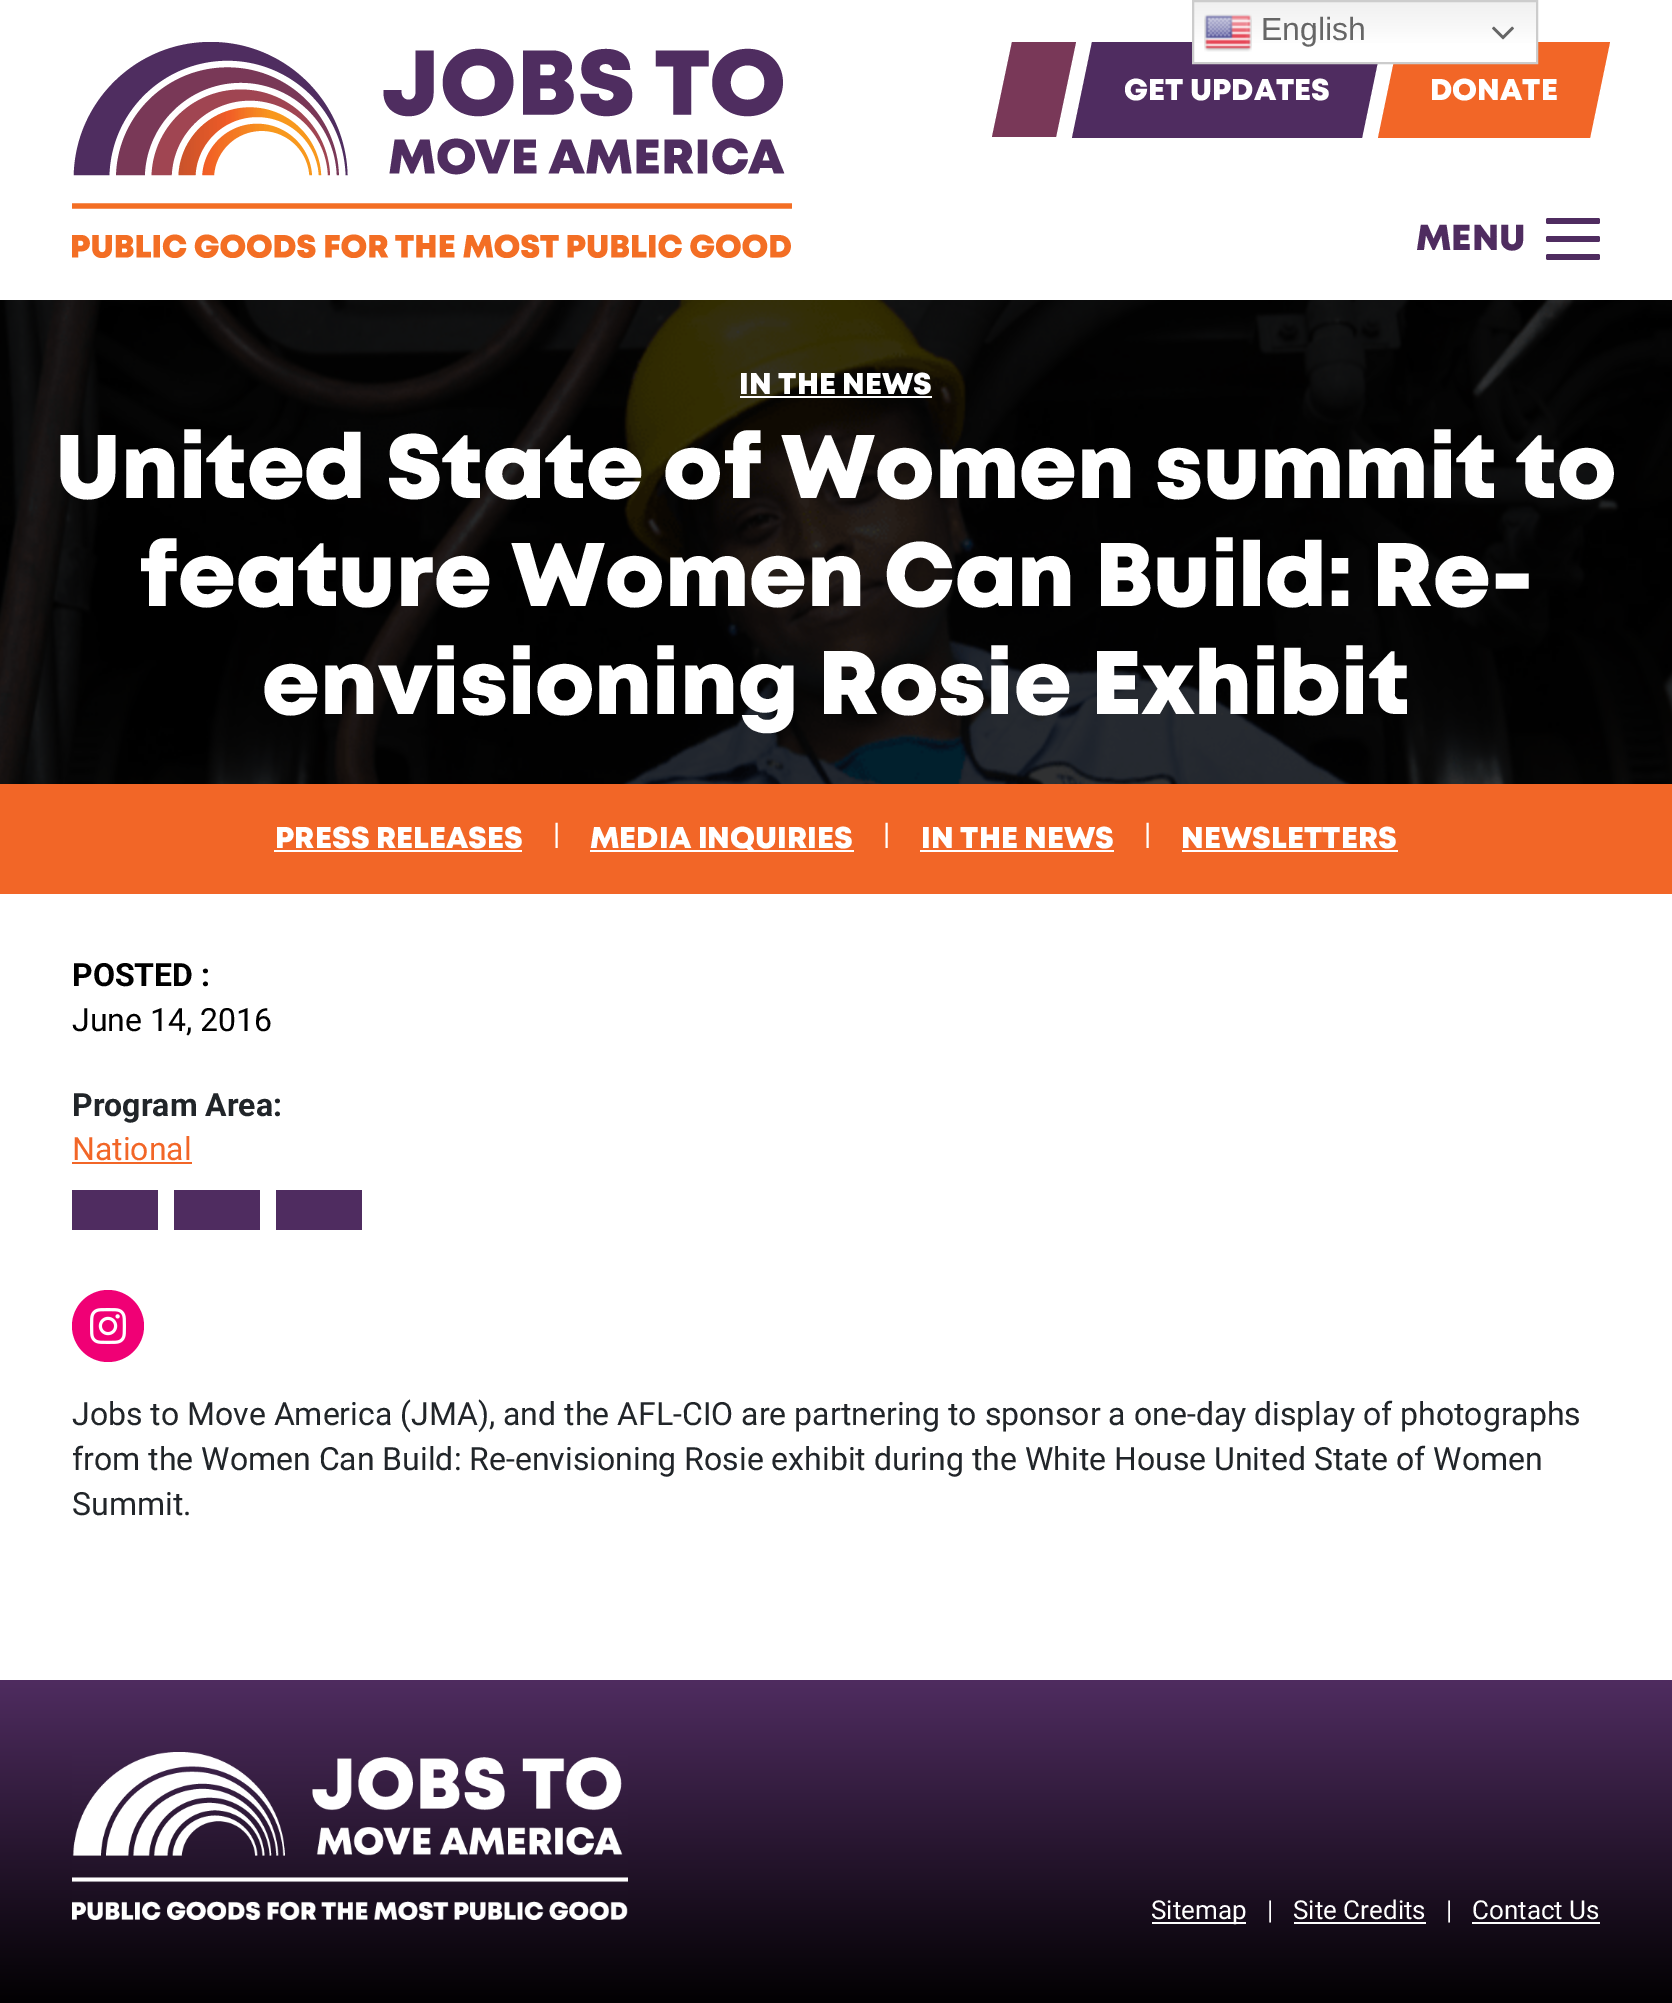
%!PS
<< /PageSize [1672 2003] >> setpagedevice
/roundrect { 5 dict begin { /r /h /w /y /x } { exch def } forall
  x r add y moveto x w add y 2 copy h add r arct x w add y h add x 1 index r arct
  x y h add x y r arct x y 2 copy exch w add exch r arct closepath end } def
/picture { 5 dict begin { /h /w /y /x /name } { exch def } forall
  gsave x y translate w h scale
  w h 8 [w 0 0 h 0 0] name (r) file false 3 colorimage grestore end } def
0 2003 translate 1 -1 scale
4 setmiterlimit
1 setgray
0 0 1672 2003 rectfill
0.475 0.22 0.345 setrgbcolor
newpath 1012 42 moveto 1076 42 lineto 1056 137 lineto 992 137 lineto closepath fill
0.31 0.173 0.376 setrgbcolor
newpath 1092 42 moveto 1382 42 lineto 1362 138 lineto 1072 138 lineto closepath fill
0.949 0.4 0.153 setrgbcolor
newpath 1398 42 moveto 1610 42 lineto 1590 138 lineto 1378 138 lineto closepath fill
gsave newpath 1194 2 moveto 1536 2 lineto 1536 62 lineto 1194 62 lineto closepath clip newpath
<< /ShadingType 2 /ColorSpace /DeviceRGB /Coords [1365 0 1365 64] /Extend [true true] /Function << /FunctionType 3 /Domain [0 1] /Functions [<< /FunctionType 2 /Domain [0 1] /C0 [0.937 0.937 0.937] /C1 [1 1 1] /N 1 >> << /FunctionType 2 /Domain [0 1] /C0 [1 1 1] /C1 [1 1 1] /N 1 >>] /Bounds [0.7] /Encode [0 1 0 1] >> >> shfill grestore
0.8 setgray
2 setlinewidth
1193 1 344 62 rectstroke
(img1.rgb) 1204 14 48 38 picture
/LiberationSans-Regular [32 0 0 -32 0 0] selectfont
0.4 setgray
1261 40 moveto (English) show
(img2.rgb) 1492 26 22 14 picture
(img3.rgb) 72 42 720 216 picture
/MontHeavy-Regular [30 0 0 -30 0 0] selectfont
1 setgray
1124 100 moveto (GET UPDATES) show
1430 100 moveto (DONATE) show
/MontHeavy-Regular [36 0 0 -36 0 0] selectfont
0.31 0.173 0.376 setrgbcolor
1416 250 moveto (MENU) show
1546 218 54 6 2 roundrect fill
1546 236 54 6 2 roundrect fill
1546 254 54 6 2 roundrect fill
(img4.rgb) 0 300 1672 484 picture
/MontHeavy-Regular [30 0 0 -30 0 0] selectfont
1 setgray
739 394 moveto (IN THE NEWS) show
740 396 192 2 rectfill
/MontHeavy-Regular [90 0 0 -90 0 0] selectfont
55 498 moveto (United State of Women summit to) show
139 606 moveto (feature Women Can Build: Re-) show
262 714 moveto (envisioning Rosie Exhibit) show
0.949 0.4 0.153 setrgbcolor
0 784 1672 110 rectfill
/MontHeavy-Regular [30 0 0 -30 0 0] selectfont
1 setgray
275 848 moveto (PRESS RELEASES) show
274 850 248 2 rectfill
/Roboto-Regular [30 0 0 -30 0 0] selectfont
553 844 moveto (|) show
590 850 264 2 rectfill
/MontHeavy-Regular [30 0 0 -30 0 0] selectfont
590 848 moveto (MEDIA INQUIRIES) show
/Roboto-Regular [30 0 0 -30 0 0] selectfont
883 844 moveto (|) show
/MontHeavy-Regular [30 0 0 -30 0 0] selectfont
921 848 moveto (IN THE NEWS) show
920 850 194 2 rectfill
/Roboto-Regular [30 0 0 -30 0 0] selectfont
1144 844 moveto (|) show
/MontHeavy-Regular [30 0 0 -30 0 0] selectfont
1181 848 moveto (NEWSLETTERS) show
1182 850 216 2 rectfill
/Roboto-Bold [32 0 0 -32 0 0] selectfont
0 setgray
72 986 moveto (POSTED :) show
/Roboto-Regular [32 0 0 -32 0 0] selectfont
72 1031 moveto (June 14, 2016) show
/Roboto-Bold [32 0 0 -32 0 0] selectfont
0.129 0.145 0.161 setrgbcolor
72 1116 moveto (Program Area:) show
/Roboto-Regular [32 0 0 -32 0 0] selectfont
0.949 0.4 0.153 setrgbcolor
72 1160 moveto (National) show
72 1162 120 2 rectfill
0.31 0.173 0.376 setrgbcolor
72 1190 86 40 rectfill
174 1190 86 40 rectfill
276 1190 86 40 rectfill
0.941 0 0.459 setrgbcolor
newpath 108 1326 36 0 360 arc closepath fill
(img5.rgb) 90 1308 36 36 picture
0.129 0.145 0.161 setrgbcolor
72 1425 moveto (Jobs to Move America \(JMA\), and the AFL-CIO are partnering to sponsor a one-day display of photographs) show
72 1470 moveto (from the Women Can Build: Re-envisioning Rosie exhibit during the White House United State of Women) show
72 1515 moveto (Summit.) show
gsave newpath 0 1680 moveto 1672 1680 lineto 1672 2003 lineto 0 2003 lineto closepath clip newpath
<< /ShadingType 2 /ColorSpace /DeviceRGB /Coords [836 1680 836 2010] /Extend [true true] /Function << /FunctionType 2 /Domain [0 1] /C0 [0.31 0.173 0.376] /C1 [0 0 0] /N 1 >> >> shfill grestore
(img6.rgb) 72 1752 556 168 picture
1 setgray
1152 1922 94 2 rectfill
/Roboto-Regular [26 0 0 -26 0 0] selectfont
1151 1919 moveto (Sitemap) show
1267 1919 moveto (|) show
1293 1919 moveto (Site Credits) show
1294 1922 132 2 rectfill
1446 1919 moveto (|) show
1472 1919 moveto (Contact Us) show
1472 1922 128 2 rectfill
showpage
